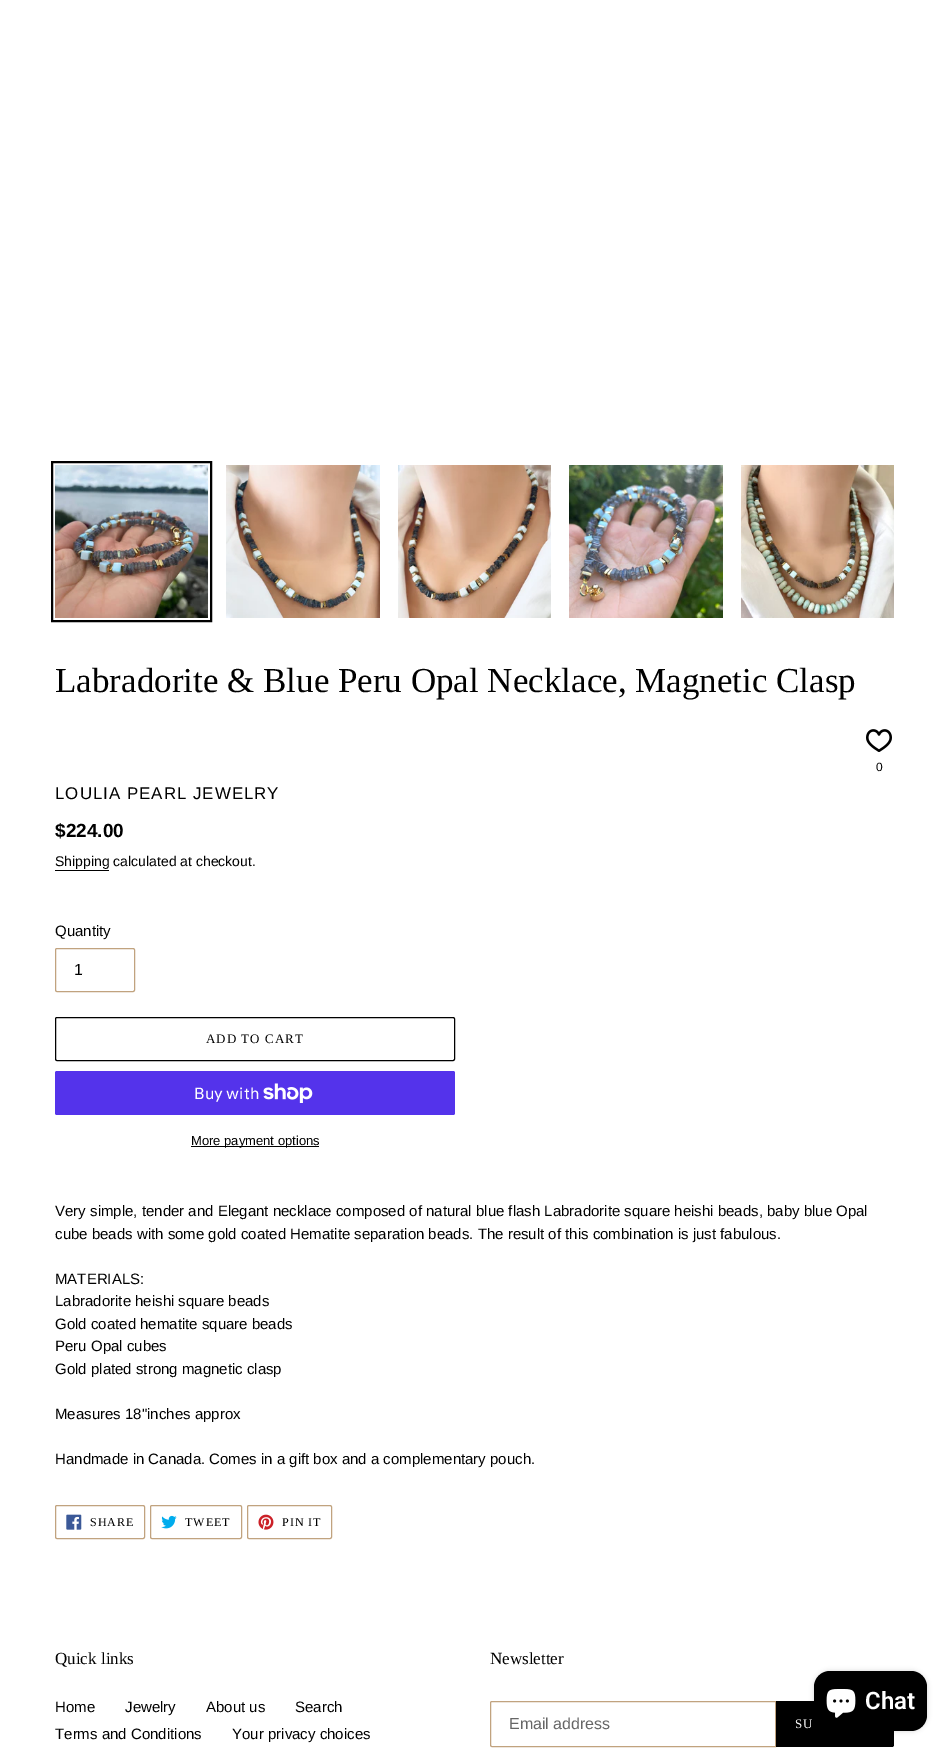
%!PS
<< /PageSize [949 1752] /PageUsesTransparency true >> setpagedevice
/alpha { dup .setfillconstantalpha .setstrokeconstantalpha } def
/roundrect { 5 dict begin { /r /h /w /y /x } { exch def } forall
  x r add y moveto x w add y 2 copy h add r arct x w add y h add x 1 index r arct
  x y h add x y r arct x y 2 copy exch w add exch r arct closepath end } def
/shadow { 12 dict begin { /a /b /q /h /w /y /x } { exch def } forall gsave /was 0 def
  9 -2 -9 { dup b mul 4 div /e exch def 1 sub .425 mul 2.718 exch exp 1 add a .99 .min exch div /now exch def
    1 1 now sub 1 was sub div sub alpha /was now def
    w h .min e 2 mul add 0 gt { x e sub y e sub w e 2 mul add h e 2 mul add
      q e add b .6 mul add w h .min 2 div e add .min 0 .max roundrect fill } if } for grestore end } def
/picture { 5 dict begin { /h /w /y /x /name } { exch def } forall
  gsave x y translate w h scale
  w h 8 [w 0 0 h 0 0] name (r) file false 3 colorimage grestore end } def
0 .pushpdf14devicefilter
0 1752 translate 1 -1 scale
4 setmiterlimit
1 setgray
0 0 949 1752 rectfill
0 setgray
2 setlinewidth
52 462 159 159 rectstroke
(img1.rgb) 55 465 153 153 picture
(img2.rgb) 226 465 154 153 picture
(img3.rgb) 398 465 153 153 picture
(img4.rgb) 569 465 154 153 picture
(img5.rgb) 741 465 153 153 picture
/LiberationSerif-Regular [35 0 0 -35 0 0] selectfont
55 692 moveto (Labradorite & Blue Peru Opal Necklace, Magnetic Clasp) show
(img6.rgb) 866 729 26 23 picture
/LiberationSans-Regular [12 0 0 -12 0 0] selectfont
876 771 moveto (0) show
/LiberationSans-Regular [16.9 0 0 -16.9 0 0] selectfont
55 799 moveto 1 0 (LOULIA PEARL JEWELRY) ashow
/LiberationSans-Bold [19 0 0 -19 0 0] selectfont
55 837 moveto ($224.00) show
/LiberationSans-Regular [14 0 0 -14 0 0] selectfont
55 866 moveto (Shipping calculated at checkout.) show
55 870 54 1 rectfill
/LiberationSans-Regular [15 0 0 -15 0 0] selectfont
55 936 moveto (Quantity) show
0.757 0.639 0.498 setrgbcolor
1 setlinewidth
55.5 948.5 79 43 1.5 roundrect stroke
/LiberationSans-Regular [16 0 0 -16 0 0] selectfont
0 setgray
74 975 moveto (1) show
55.5 1017.5 399 43 1.5 roundrect stroke
/LiberationSerif-Regular [13 0 0 -13 0 0] selectfont
206 1043 moveto 1 0 (ADD TO CART) ashow
0.329 0.2 0.922 setrgbcolor
55 1071 400 44 2 roundrect fill
/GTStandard-Regular [16 0 0 -16 0 0] selectfont
1 setgray
194 1099 moveto (Buy with) show
(img7.rgb) 263 1083 50 20 picture
0 setgray
191 1146 128 1 rectfill
/LiberationSans-Regular [13 0 0 -13 0 0] selectfont
191 1145 moveto (More payment options) show
/LiberationSans-Regular [15 0 0 -15 0 0] selectfont
55 1216 moveto (Very simple, tender and Elegant necklace composed of natural blue flash Labradorite square heishi beads, baby blue Opal) show
55 1239 moveto (cube beads with some gold coated Hematite separation beads. The result of this combination is just fabulous.) show
55 1284 moveto (MATERIALS:) show
55 1306 moveto (Labradorite heishi square beads) show
55 1329 moveto (Gold coated hematite square beads) show
55 1351 moveto (Peru Opal cubes) show
55 1374 moveto (Gold plated strong magnetic clasp) show
55 1419 moveto (Measures 18"inches approx) show
55 1464 moveto (Handmade in Canada. Comes in a gift box and a complementary pouch.) show
0.757 0.639 0.498 setrgbcolor
55.5 1505.5 89 33 1.5 roundrect stroke
(img8.rgb) 66 1514 16 16 picture
/LiberationSerif-Regular [12 0 0 -12 0 0] selectfont
0 setgray
90 1526 moveto 1 0 (SHARE) ashow
0.757 0.639 0.498 setrgbcolor
150.5 1505.5 91 33 1.5 roundrect stroke
(img9.rgb) 161 1515 16 14 picture
0 setgray
185 1526 moveto 1 0 (TWEET) ashow
0.757 0.639 0.498 setrgbcolor
247.5 1505.5 84 33 1.5 roundrect stroke
(img10.rgb) 258 1514 16 16 picture
0 setgray
282 1526 moveto 1 0 (PIN IT) ashow
/LiberationSerif-Regular [17 0 0 -17 0 0] selectfont
55 1664 moveto (Quick links) show
/LiberationSans-Regular [15 0 0 -15 0 0] selectfont
55 1712 moveto (Home) show
125 1712 moveto (Jewelry) show
206 1712 moveto (About us) show
295 1712 moveto (Search) show
55 1739 moveto (Terms and Conditions) show
232 1739 moveto (Your privacy choices) show
/LiberationSerif-Regular [17 0 0 -17 0 0] selectfont
490 1664 moveto (Newsletter) show
0.757 0.639 0.498 setrgbcolor
newpath 492 1701.5 moveto 775.5 1701.5 lineto 775.5 1746.5 lineto 492 1746.5 lineto 491 1746.5 490.5 1746 490.5 1745 curveto 490.5 1703 lineto 490.5 1702 491 1701.5 492 1701.5 curveto closepath stroke
/LiberationSans-Regular [16 0 0 -16 0 0] selectfont
0.4 setgray
509 1729 moveto (Email address) show
0 setgray
newpath 776 1701 moveto 892 1701 lineto 893 1701 894 1702 894 1703 curveto 894 1745 lineto 894 1746 893 1747 892 1747 curveto 776 1747 lineto closepath fill
/LiberationSerif-Regular [13 0 0 -13 0 0] selectfont
1 setgray
795 1728 moveto 1 0 (SU) ashow
0 setgray
814 1671 113 60 16 2.5 0.15 shadow
814 1671 113 60 16 roundrect fill
(img11.rgb) 826 1689 30 29 picture
/Roboto-SemiBold [24 0 0 -24 0 0] selectfont
1 setgray
865 1709 moveto (Chat) show
.poppdf14devicefilter showpage
